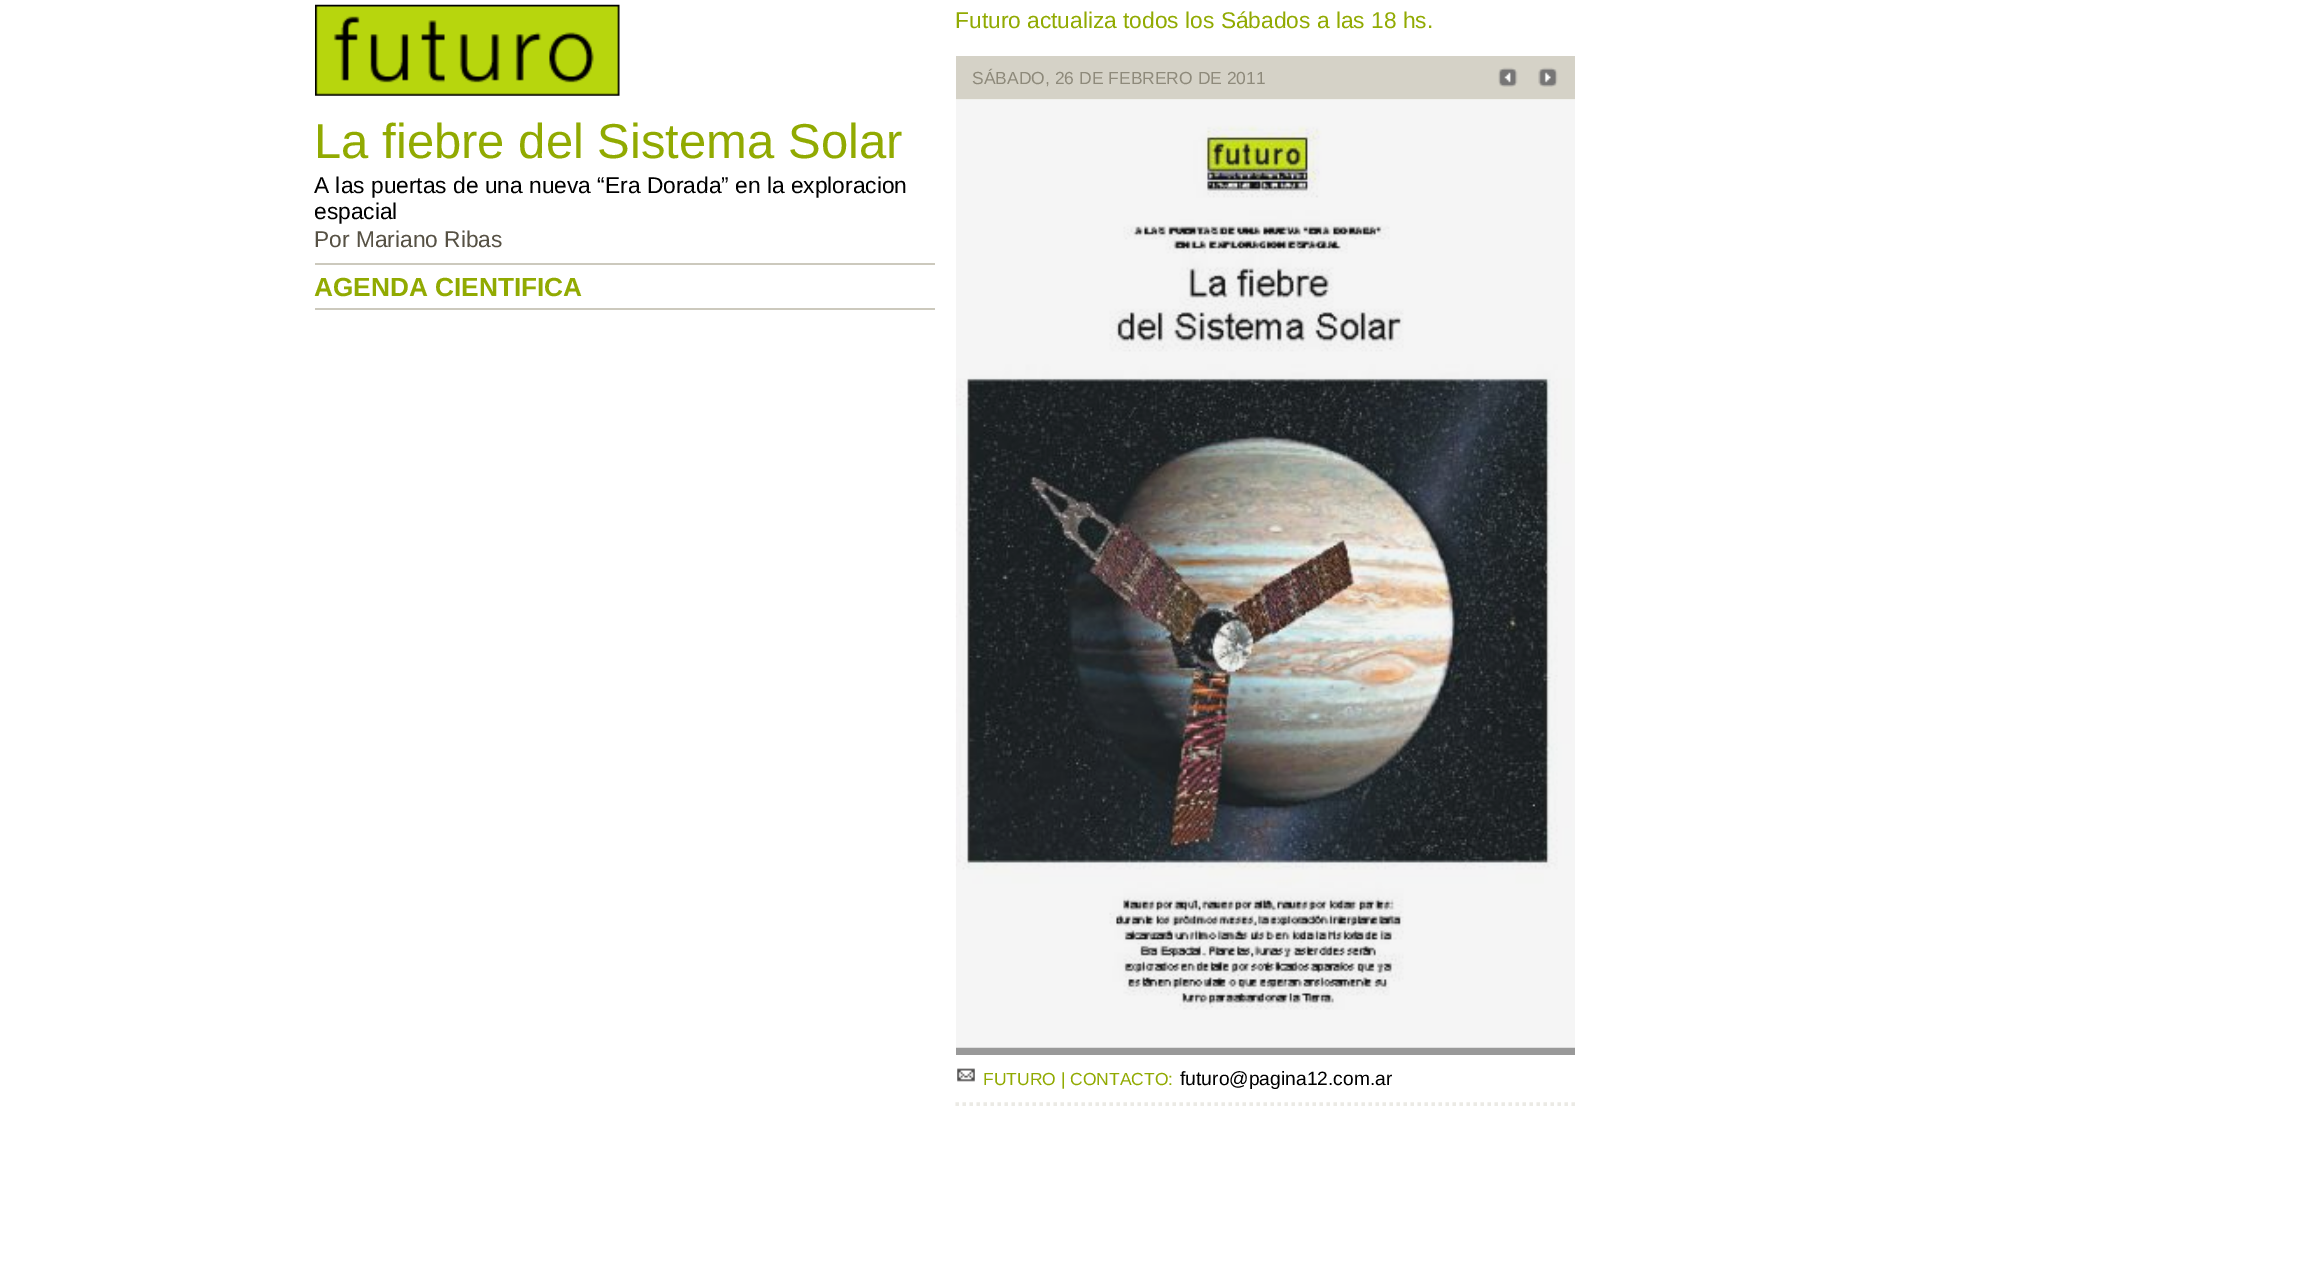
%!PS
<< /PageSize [2315 1266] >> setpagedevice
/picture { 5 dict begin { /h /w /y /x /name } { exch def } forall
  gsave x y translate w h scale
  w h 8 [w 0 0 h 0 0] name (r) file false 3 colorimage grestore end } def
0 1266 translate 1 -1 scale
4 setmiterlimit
1 setgray
0 0 2315 1266 rectfill
(img1.rgb) 315 4 305 92 picture
0.8 0.788 0.741 setrgbcolor
315 263 620 2 rectfill
/LiberationSans-Regular [49 0 0 -49 0 0] selectfont
0.569 0.667 0.004 setrgbcolor
314 158 moveto (La fiebre del Sistema Solar) show
/LiberationSans-Regular [22.75 0 0 -22.75 0 0] selectfont
0 setgray
314 193 moveto (A las puertas de una nueva “Era Dorada” en la exploracion) show
314 219 moveto (espacial) show
0.337 0.318 0.267 setrgbcolor
314 247 moveto (Por Mariano Ribas) show
0.8 0.788 0.741 setrgbcolor
315 308 620 2 rectfill
/LiberationSans-Bold [26.25 0 0 -26.25 0 0] selectfont
0.569 0.667 0.004 setrgbcolor
314 296 moveto (AGENDA CIENTIFICA) show
/LiberationSans-Regular [22.75 0 0 -22.75 0 0] selectfont
955 28 moveto (Futuro actualiza todos los Sábados a las 18 hs.) show
0.835 0.824 0.78 setrgbcolor
956 56 619 44 rectfill
/LiberationSans-Regular [17.5 0 0 -17.5 0 0] selectfont
0.557 0.541 0.482 setrgbcolor
972 84 moveto (SÁBADO, 26 DE FEBRERO DE 2011) show
(img2.rgb) 1498 67 20 20 picture
(img3.rgb) 1538 67 20 20 picture
0.6 setgray
956 100 619 955 rectfill
(img4.rgb) 955 99 620 949 picture
0.922 0.918 0.898 setrgbcolor
3.5 setlinewidth
[3.5 3.5] 0 setdash
newpath 955.5 1104 moveto 1575 1104 lineto stroke
(img5.rgb) 957 1068 18 14 picture
0.569 0.667 0.004 setrgbcolor
983 1085 moveto (FUTURO | CONTACTO:) show
/LiberationSans-Regular [19.25 0 0 -19.25 0 0] selectfont
0 setgray
1180 1085 moveto (futuro@pagina12.com.ar) show
showpage
